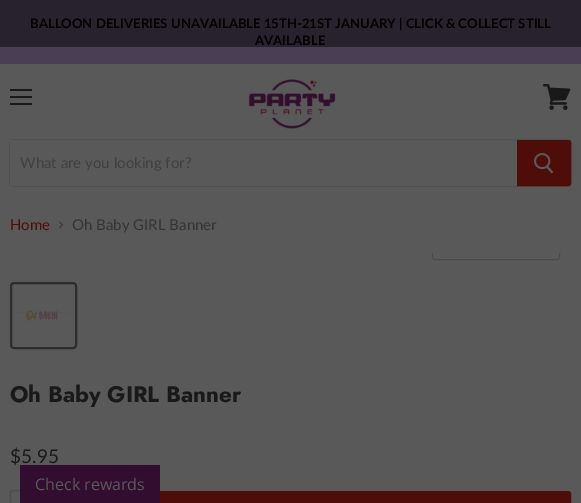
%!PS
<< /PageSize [581 503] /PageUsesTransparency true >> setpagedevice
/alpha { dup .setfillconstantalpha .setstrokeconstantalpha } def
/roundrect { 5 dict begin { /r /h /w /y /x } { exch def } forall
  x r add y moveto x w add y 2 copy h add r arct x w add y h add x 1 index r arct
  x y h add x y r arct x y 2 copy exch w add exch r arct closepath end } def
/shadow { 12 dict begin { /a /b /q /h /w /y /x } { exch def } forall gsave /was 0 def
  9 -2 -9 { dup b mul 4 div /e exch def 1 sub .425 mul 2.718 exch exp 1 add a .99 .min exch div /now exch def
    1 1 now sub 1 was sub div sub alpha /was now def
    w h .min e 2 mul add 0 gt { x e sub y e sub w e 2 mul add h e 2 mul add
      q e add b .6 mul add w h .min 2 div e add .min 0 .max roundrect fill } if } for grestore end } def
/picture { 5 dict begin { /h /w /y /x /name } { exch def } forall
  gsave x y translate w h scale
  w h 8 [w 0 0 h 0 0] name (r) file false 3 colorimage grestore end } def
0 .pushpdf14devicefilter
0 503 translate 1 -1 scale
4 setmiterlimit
0.349 setgray
0 0 581 503 rectfill
0.286 0.243 0.325 setrgbcolor
0 47 581 17 rectfill
0.157 0.133 0.18 setrgbcolor
0 0 581 47 rectfill
/Lato-Bold [13.1 0 0 -13.1 0 0] selectfont
0 setgray
30 28 moveto (BALLOON DELIVERIES UNAVAILABLE 15TH-21ST JANUARY | CLICK & COLLECT STILL) show
255 45 moveto (AVAILABLE) show
0.098 setgray
10 89 22 2 rectfill
10 96 22 2 rectfill
10 103 22 2 rectfill
(img1.rgb) 543 84 28 26 picture
(img2.rgb) 248 79 89 51 picture
0.2 alpha
0.176 setgray
9.5 139.5 562 47 3.5 roundrect stroke
1 alpha
0.349 setgray
10 140 2 46 rectfill
/Lato-Regular [15 0 0 -15 0 0] selectfont
0.251 setgray
20 168 moveto (What are you looking for?) show
0.31 0.051 0.035 setrgbcolor
newpath 517.5 140.5 moveto 568 140.5 lineto 569.5 140.5 570.5 141.5 570.5 143 curveto 570.5 183 lineto 570.5 184.5 569.5 185.5 568 185.5 curveto 517.5 185.5 lineto closepath gsave fill grestore
stroke
(img3.rgb) 534 153 20 21 picture
10 230 moveto (Home) show
(img4.rgb) 59 221 4 8 picture
0.204 setgray
72 230 moveto (Oh Baby GIRL Banner) show
gsave
10 253 561 18 rectclip
0.29 setgray
432.5 231.5 127 28 3.5 roundrect stroke
grestore
0.9 alpha
0.349 setgray
newpath 433 253 moveto 559 253 lineto 559 256 lineto 559 257.5 557.5 259 556 259 curveto 436 259 lineto 434.5 259 433 257.5 433 256 curveto closepath fill
1 alpha
0.176 setgray
2 setlinewidth
11 283 65 65 3 roundrect stroke
(img5.rgb) 13 310 60 13 picture
/Jost-Bold [22.5 0 0 -22.5 0 0] selectfont
0.098 setgray
10 402 moveto (Oh Baby GIRL Banner) show
/Lato-Regular [19 0 0 -19 0 0] selectfont
10 463 moveto ($5.95) show
0 setgray
10 491 115 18 3 1 0.15 shadow
0.349 setgray
10.5 490.5 114 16 2.5 roundrect gsave fill grestore
0.302 setgray
1 setlinewidth
stroke
0.31 0.051 0.035 setrgbcolor
137.5 491.5 433 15 2.5 roundrect gsave fill grestore
stroke
0.196 0.051 0.188 setrgbcolor
20 465 140 38 rectfill
/OpenSans-Regular [16 0 0 -16 0 0] selectfont
0.349 setgray
35 490 moveto (Check rewards) show
.poppdf14devicefilter showpage
